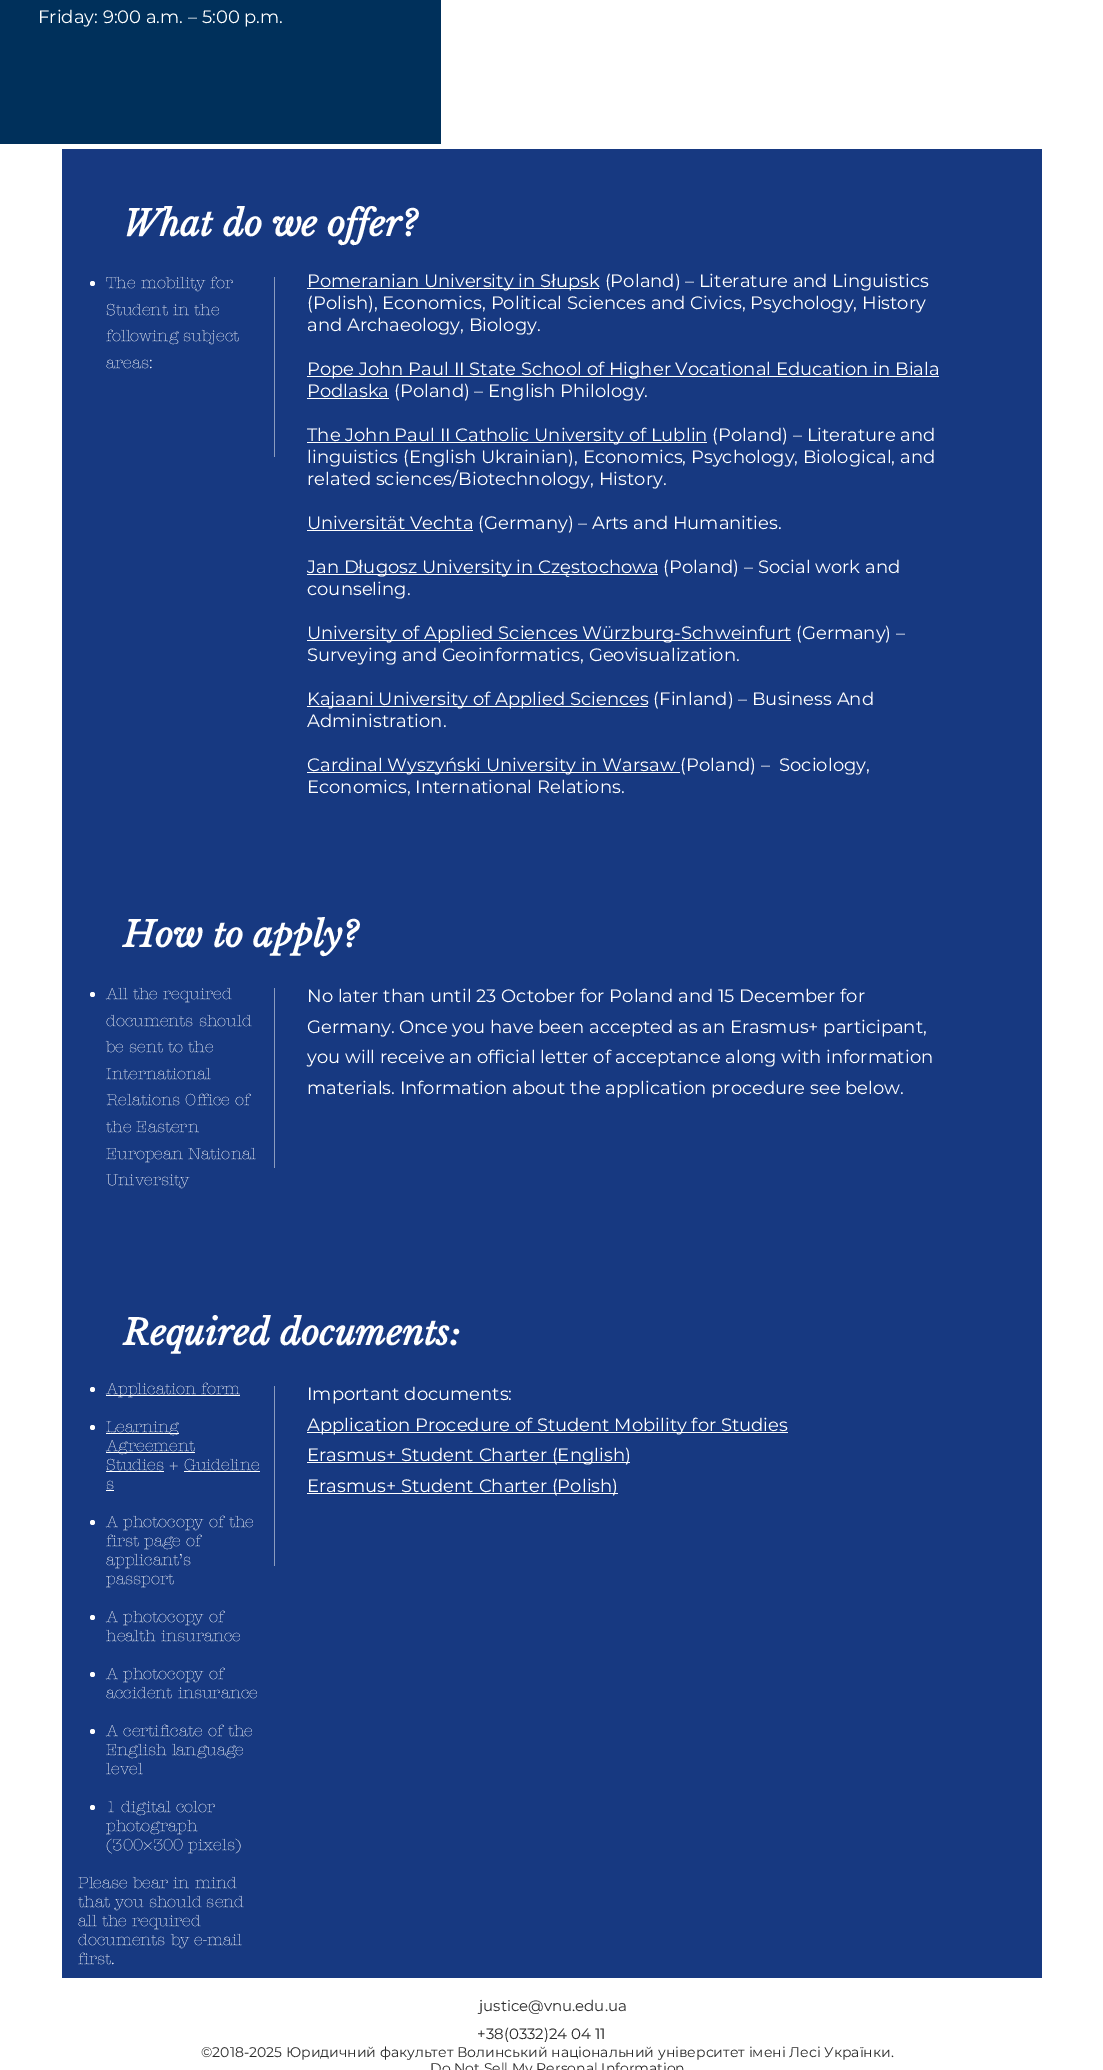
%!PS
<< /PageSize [1103 2070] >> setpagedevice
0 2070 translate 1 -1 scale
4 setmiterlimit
1 setgray
0 0 1103 2070 rectfill
0 0.188 0.357 setrgbcolor
0 0 441 144 rectfill
/Montserrat-Regular [18 0 0 -18 0 0] selectfont
1 setgray
38 23 moveto (Friday: 9:00 a.m. – 5:00 p.m.) show
0.09 0.224 0.506 setrgbcolor
62 149 980 1829 rectfill
/LibreBaskerville-BoldItalic [35 0 0 -35 0 0] selectfont
1 setgray
123 236 moveto (What do we offer?) show
newpath 92.5 283.5 2.5 0 360 arc closepath fill
/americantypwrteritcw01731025-Light [16 0 0 -16 0 0] selectfont
106 288 moveto (The mobility for) show
106 315 moveto (Student in the) show
106 341 moveto (following subject) show
106 368 moveto (areas:) show
0.545 0.612 0.753 setrgbcolor
274 277 1 180 rectfill
1 setgray
307 288 292 1 rectfill
/Montserrat-Regular [18 0 0 -18 0 0] selectfont
307 287 moveto (Pomeranian University in Słupsk \(Poland\) – Literature and Linguistics) show
307 309 moveto (\(Polish\), Economics, Political Sciences and Civics, Psychology, History) show
307 331 moveto (and Archaeology, Biology.) show
307 376 632 1 rectfill
307 375 moveto (Pope John Paul II State School of Higher Vocational Education in Biala) show
307 398 82 1 rectfill
307 397 moveto (Podlaska \(Poland\) – English Philology.) show
307 442 400 1 rectfill
307 441 moveto (The John Paul II Catholic University of Lublin \(Poland\) – Literature and) show
307 463 moveto (linguistics \(English Ukrainian\), Economics, Psychology, Biological, and) show
307 485 moveto (related sciences/Biotechnology, History.) show
307 530 166 1 rectfill
307 529 moveto (Universität Vechta \(Germany\) – Arts and Humanities.) show
307 574 351 1 rectfill
307 573 moveto (Jan Długosz University in Częstochowa \(Poland\) – Social work and) show
307 595 moveto (counseling.) show
307 640 484 1 rectfill
307 639 moveto (University of Applied Sciences Würzburg-Schweinfurt \(Germany\) –) show
307 661 moveto (Surveying and Geoinformatics, Geovisualization.) show
307 706 341 1 rectfill
307 705 moveto (Kajaani University of Applied Sciences \(Finland\) – Business And) show
307 727 moveto (Administration.) show
307 772 373 1 rectfill
307 771 moveto (Cardinal Wyszyński University in Warsaw \(Poland\) –  Sociology,) show
307 793 moveto (Economics, International Relations.) show
/LibreBaskerville-BoldItalic [35 0 0 -35 0 0] selectfont
123 947 moveto (How to apply?) show
newpath 92.5 994.5 2.5 0 360 arc closepath fill
/americantypwrteritcw01731025-Light [16 0 0 -16 0 0] selectfont
106 999 moveto (All the required) show
106 1026 moveto (documents should) show
106 1052 moveto (be sent to the) show
106 1079 moveto (International) show
106 1105 moveto (Relations Office of) show
106 1132 moveto (the Eastern) show
106 1159 moveto (European National) show
106 1185 moveto (University) show
0.545 0.612 0.753 setrgbcolor
274 988 1 180 rectfill
/Montserrat-Regular [18 0 0 -18 0 0] selectfont
1 setgray
307 1002 moveto (No later than until 23 October for Poland and 15 December for) show
307 1033 moveto (Germany. Once you have been accepted as an Erasmus+ participant,) show
307 1063 moveto (you will receive an official letter of acceptance along with information) show
307 1094 moveto (materials. Information about the application procedure see below.) show
/LibreBaskerville-BoldItalic [35 0 0 -35 0 0] selectfont
123 1345 moveto (Required documents:) show
newpath 92.5 1389.5 2.5 0 360 arc closepath fill
106 1395 134 1 rectfill
/americantypwrteritcw01731025-Light [16 0 0 -16 0 0] selectfont
106 1394 moveto (Application form) show
newpath 92.5 1427.5 2.5 0 360 arc closepath fill
106 1433 73 1 rectfill
106 1432 moveto (Learning) show
106 1452 89 1 rectfill
106 1451 moveto (Agreement) show
106 1470 moveto (Studies + Guideline) show
106 1471 58 1 rectfill
184 1471 76 1 rectfill
106 1489 moveto (s) show
106 1490 8 1 rectfill
newpath 92.5 1522.5 2.5 0 360 arc closepath fill
106 1527 moveto (A photocopy of the) show
106 1546 moveto (first page of) show
106 1565 moveto (applicant’s) show
106 1584 moveto (passport) show
newpath 92.5 1617.5 2.5 0 360 arc closepath fill
106 1622 moveto (A photocopy of) show
106 1641 moveto (health insurance) show
newpath 92.5 1674.5 2.5 0 360 arc closepath fill
106 1679 moveto (A photocopy of) show
106 1698 moveto (accident insurance) show
newpath 92.5 1731.5 2.5 0 360 arc closepath fill
106 1736 moveto (A certificate of the) show
106 1755 moveto (English language) show
106 1774 moveto (level) show
newpath 92.5 1807.5 2.5 0 360 arc closepath fill
106 1812 moveto (1 digital color) show
106 1831 moveto (photograph) show
106 1850 moveto (\(300×300 pixels\)) show
78 1888 moveto (Please bear in mind) show
78 1907 moveto (that you should send) show
78 1926 moveto (all the required) show
78 1945 moveto (documents by e-mail) show
78 1964 moveto (first.) show
0.545 0.612 0.753 setrgbcolor
274 1386 1 180 rectfill
/Montserrat-Regular [18 0 0 -18 0 0] selectfont
1 setgray
307 1400 moveto (Important documents:) show
307 1432 481 1 rectfill
307 1431 moveto (Application Procedure of Student Mobility for Studies) show
307 1462 323 1 rectfill
307 1461 moveto (Erasmus+ Student Charter \(English\)) show
307 1493 311 1 rectfill
307 1492 moveto (Erasmus+ Student Charter \(Polish\)) show
/Montserrat-Regular [15 0 0 -15 0 0] selectfont
0.165 setgray
479 2011 moveto (justice@vnu.edu.ua) show
477 2039 moveto (+38\(0332\)24 04 11) show
/Montserrat-Regular [14 0 0 -14 0 0] selectfont
201 2057 moveto (©2018-2025 Юридичний факультет Волинський національний університет імені Лесі Українки.) show
430 2073 moveto (Do Not Sell My Personal Information) show
showpage
